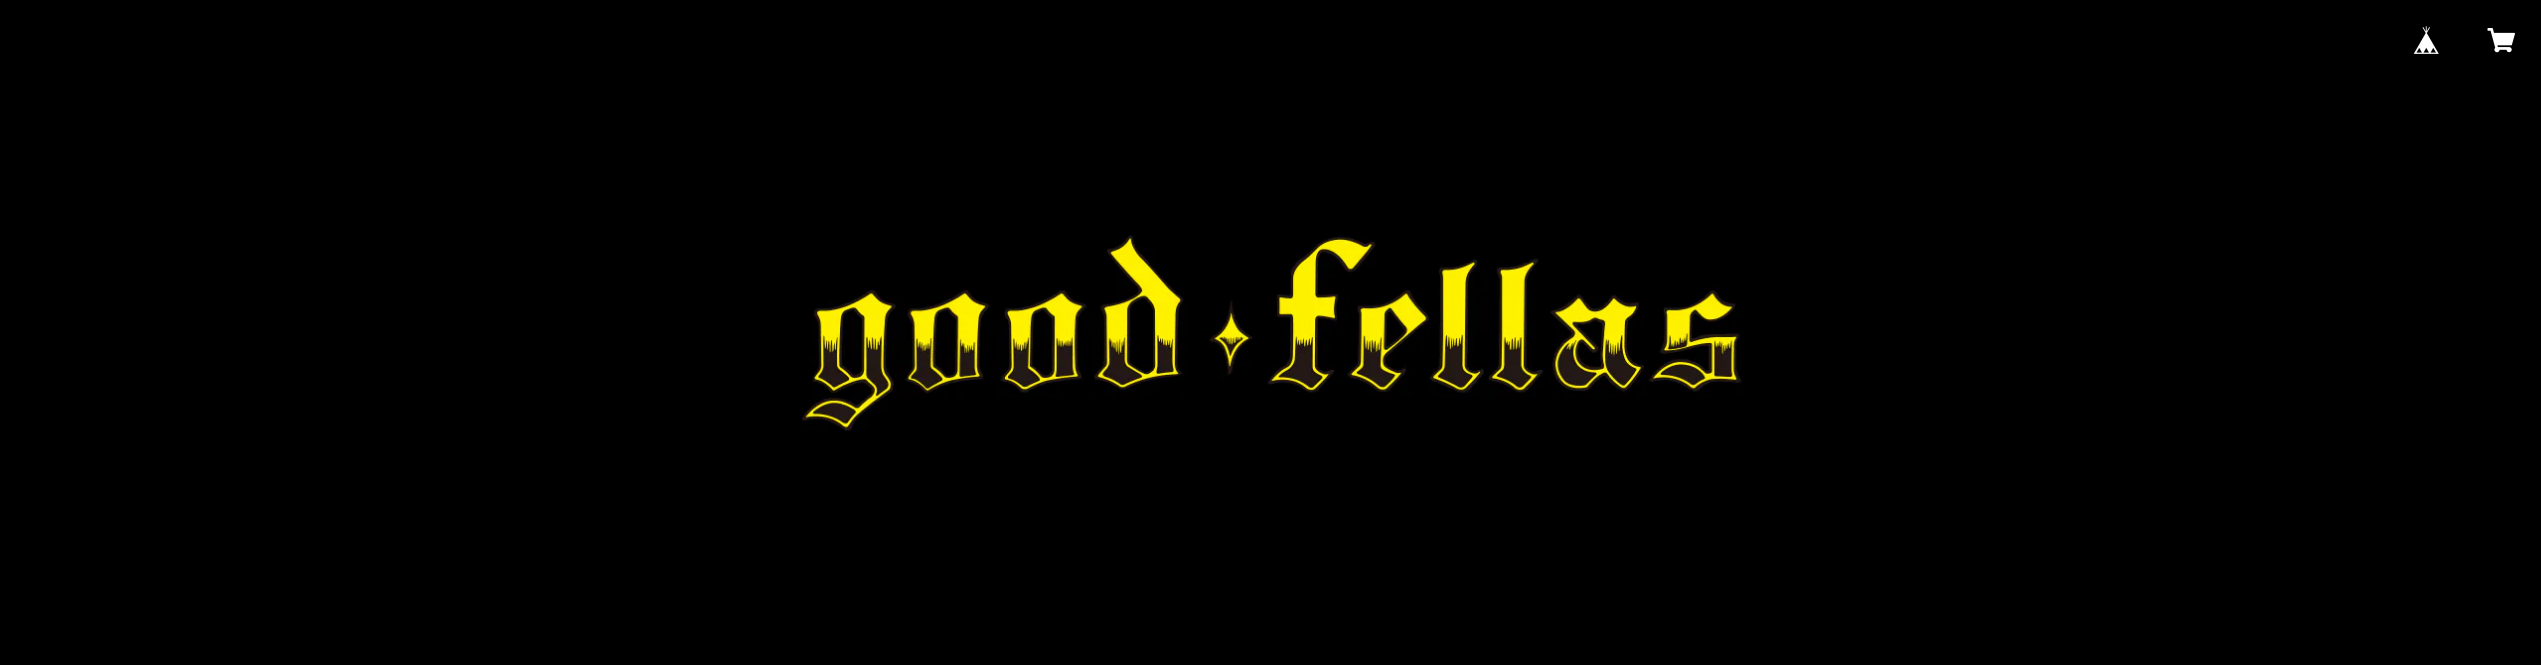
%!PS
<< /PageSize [2541 665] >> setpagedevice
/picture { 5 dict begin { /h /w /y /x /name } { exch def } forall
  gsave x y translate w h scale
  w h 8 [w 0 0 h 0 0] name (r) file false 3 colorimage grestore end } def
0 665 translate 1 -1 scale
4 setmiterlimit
0 setgray
0 0 2541 665 rectfill
(img1.rgb) 2413 26 26 28 picture
(img2.rgb) 2487 28 28 25 picture
(img3.rgb) 801 235 942 196 picture
showpage
